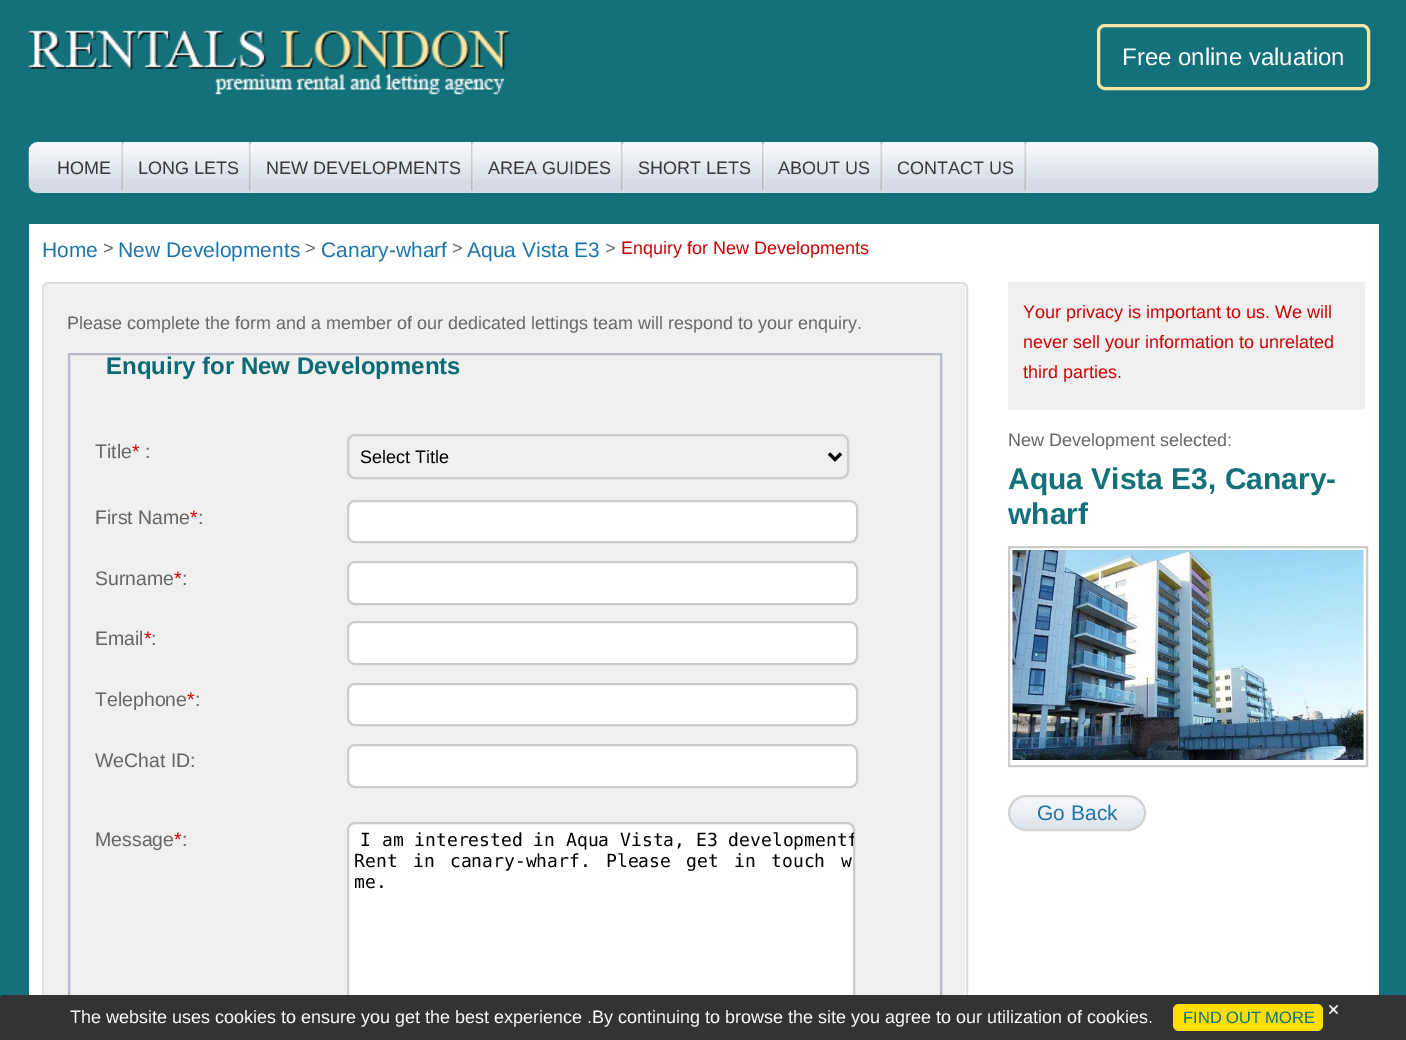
%!PS
<< /PageSize [1406 1040] >> setpagedevice
/roundrect { 5 dict begin { /r /h /w /y /x } { exch def } forall
  x r add y moveto x w add y 2 copy h add r arct x w add y h add x 1 index r arct
  x y h add x y r arct x y 2 copy exch w add exch r arct closepath end } def
/picture { 5 dict begin { /h /w /y /x /name } { exch def } forall
  gsave x y translate w h scale
  w h 8 [w 0 0 h 0 0] name (r) file false 3 colorimage grestore end } def
0 1040 translate 1 -1 scale
4 setmiterlimit
0.075 0.443 0.482 setrgbcolor
0 0 1406 1040 rectfill
(img1.rgb) 28 30 482 65 picture
0.976 0.902 0.635 setrgbcolor
3 setlinewidth
1098.5 25.5 270 63 6.5 roundrect stroke
/LiberationSans-Regular [24 0 0 -24 0 0] selectfont
1 setgray
1122 65 moveto (Free online valuation) show
(img2.rgb) 28 142 1351 51 picture
(img3.rgb) 121 142 4 51 picture
/LiberationSans-Regular [18 0 0 -18 0 0] selectfont
0.231 0.22 0.224 setrgbcolor
57 174 moveto (HOME) show
(img4.rgb) 249 142 3 51 picture
138 174 moveto (LONG LETS) show
(img5.rgb) 471 142 3 51 picture
266 174 moveto (NEW DEVELOPMENTS) show
(img4.rgb) 621 142 3 51 picture
488 174 moveto (AREA GUIDES) show
(img4.rgb) 762 142 3 51 picture
638 174 moveto (SHORT LETS) show
(img6.rgb) 880 142 4 51 picture
778 174 moveto (ABOUT US) show
(img7.rgb) 1024 142 4 51 picture
897 174 moveto (CONTACT US) show
1 setgray
29 224 1350 771 rectfill
/LiberationSans-Regular [21 0 0 -21 0 0] selectfont
0.114 0.459 0.675 setrgbcolor
42 257 moveto (Home) show
/LiberationSans-Regular [18 0 0 -18 0 0] selectfont
0.4 setgray
103 254 moveto (>) show
/LiberationSans-Regular [21 0 0 -21 0 0] selectfont
0.114 0.459 0.675 setrgbcolor
118 257 moveto (New Developments) show
/LiberationSans-Regular [18 0 0 -18 0 0] selectfont
0.4 setgray
305 254 moveto (>) show
/LiberationSans-Regular [21 0 0 -21 0 0] selectfont
0.114 0.459 0.675 setrgbcolor
321 257 moveto (Canary-wharf) show
/LiberationSans-Regular [18 0 0 -18 0 0] selectfont
0.4 setgray
452 254 moveto (>) show
/LiberationSans-Regular [21 0 0 -21 0 0] selectfont
0.114 0.459 0.675 setrgbcolor
467 257 moveto (Aqua Vista E3) show
/LiberationSans-Regular [18 0 0 -18 0 0] selectfont
0.4 setgray
605 254 moveto (>) show
0.8 0 0 setrgbcolor
621 254 moveto (Enquiry for New Developments) show
0.871 setgray
2 setlinewidth
43 283 924 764 5 roundrect stroke
0.941 setgray
45 285 920 710 rectfill
0.4 setgray
67 329 moveto (Please complete the form and a member of our dedicated lettings team will respond to your enquiry.) show
0.71 0.722 0.784 setrgbcolor
69 354 872 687 rectstroke
/LiberationSans-Bold [24 0 0 -24 0 0] selectfont
0.047 0.416 0.459 setrgbcolor
106 374 moveto (Enquiry for New Developments) show
/LiberationSans-Regular [19.5 0 0 -19.5 0 0] selectfont
0.4 setgray
95 458 moveto (Title) show
0.8 0 0 setrgbcolor
132 458 moveto (*) show
0.4 setgray
145 458 moveto (:) show
0.8 setgray
348 435 500 43 7 roundrect stroke
0 setgray
3 setlinewidth
newpath 829 453.5 moveto 835 459.5 lineto 841 453.5 lineto stroke
/LiberationSans-Regular [18 0 0 -18 0 0] selectfont
360 463 moveto (Select Title) show
/LiberationSans-Regular [19.5 0 0 -19.5 0 0] selectfont
0.4 setgray
95 524 moveto (First Name) show
0.8 0 0 setrgbcolor
190 524 moveto (*) show
0.4 setgray
198 524 moveto (:) show
1 setgray
348 501 509 41 7 roundrect gsave fill grestore
0.8 setgray
2 setlinewidth
stroke
0.4 setgray
95 585 moveto (Surname) show
0.8 0 0 setrgbcolor
174 585 moveto (*) show
0.4 setgray
182 585 moveto (:) show
1 setgray
348 562 509 42 7 roundrect gsave fill grestore
0.8 setgray
stroke
0.4 setgray
95 645 moveto (Email) show
0.8 0 0 setrgbcolor
144 645 moveto (*) show
0.4 setgray
151 645 moveto (:) show
1 setgray
348 622 509 42 7 roundrect gsave fill grestore
0.8 setgray
stroke
0.4 setgray
95 706 moveto (Telephone) show
0.8 0 0 setrgbcolor
187 706 moveto (*) show
0.4 setgray
195 706 moveto (:) show
1 setgray
348 684 509 41 7 roundrect gsave fill grestore
0.8 setgray
stroke
0.4 setgray
95 767 moveto (WeChat ID:) show
1 setgray
348 745 509 42 7 roundrect gsave fill grestore
0.8 setgray
stroke
0.4 setgray
95 846 moveto (Message) show
0.8 0 0 setrgbcolor
174 846 moveto (*) show
0.4 setgray
182 846 moveto (:) show
1 setgray
348 823 506 193 7 roundrect gsave fill grestore
0.8 setgray
stroke
/DejaVuSansMono-Regular [18 0 0 -18 0 0] selectfont
0 setgray
360 846 moveto (I am interested in Aqua Vista, E3 development) show
gsave
348 824 506 192 6 roundrect clip newpath
847 846 moveto (f) show
grestore
354 867 moveto 4.5 0 32 (Rent in canary-wharf. Please get in touch) widthshow
841 867 moveto (w) show
354 888 moveto (me.) show
0.941 setgray
1008 282 357 128 rectfill
/LiberationSans-Regular [18 0 0 -18 0 0] selectfont
0.8 0 0 setrgbcolor
1023 318 moveto (Your privacy is important to us. We will) show
1023 348 moveto (never sell your information to unrelated) show
1023 378 moveto (third parties.) show
0.4 setgray
1008 446 moveto (New Development selected:) show
/LiberationSans-Bold [30 0 0 -30 0 0] selectfont
0.075 0.443 0.482 setrgbcolor
1008 489 moveto (Aqua Vista E3, Canary-) show
1008 524 moveto (wharf) show
0.8 setgray
1009 547 358 219 rectstroke
(img8.rgb) 1012 550 352 210 picture
(img9.rgb) 1008 796 138 35 picture
0.827 setgray
1009 796 136 34 17 roundrect stroke
/LiberationSans-Regular [21 0 0 -21 0 0] selectfont
0.114 0.459 0.675 setrgbcolor
1037 820 moveto (Go Back) show
0.2 setgray
0 995 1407 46 3 roundrect fill
/LiberationSans-Regular [18 0 0 -18 0 0] selectfont
1 setgray
70 1023 moveto (The website uses cookies to ensure you get the best experience .By continuing to browse the site you agree to our utilization of cookies.) show
0.996 0.875 0 setrgbcolor
1173 1004 150 27 6 roundrect fill
/LiberationSans-Regular [16.5 0 0 -16.5 0 0] selectfont
0.075 0.443 0.482 setrgbcolor
1183 1023 moveto (FIND OUT MORE) show
(img10.rgb) 1329 1005 9 9 picture
showpage
